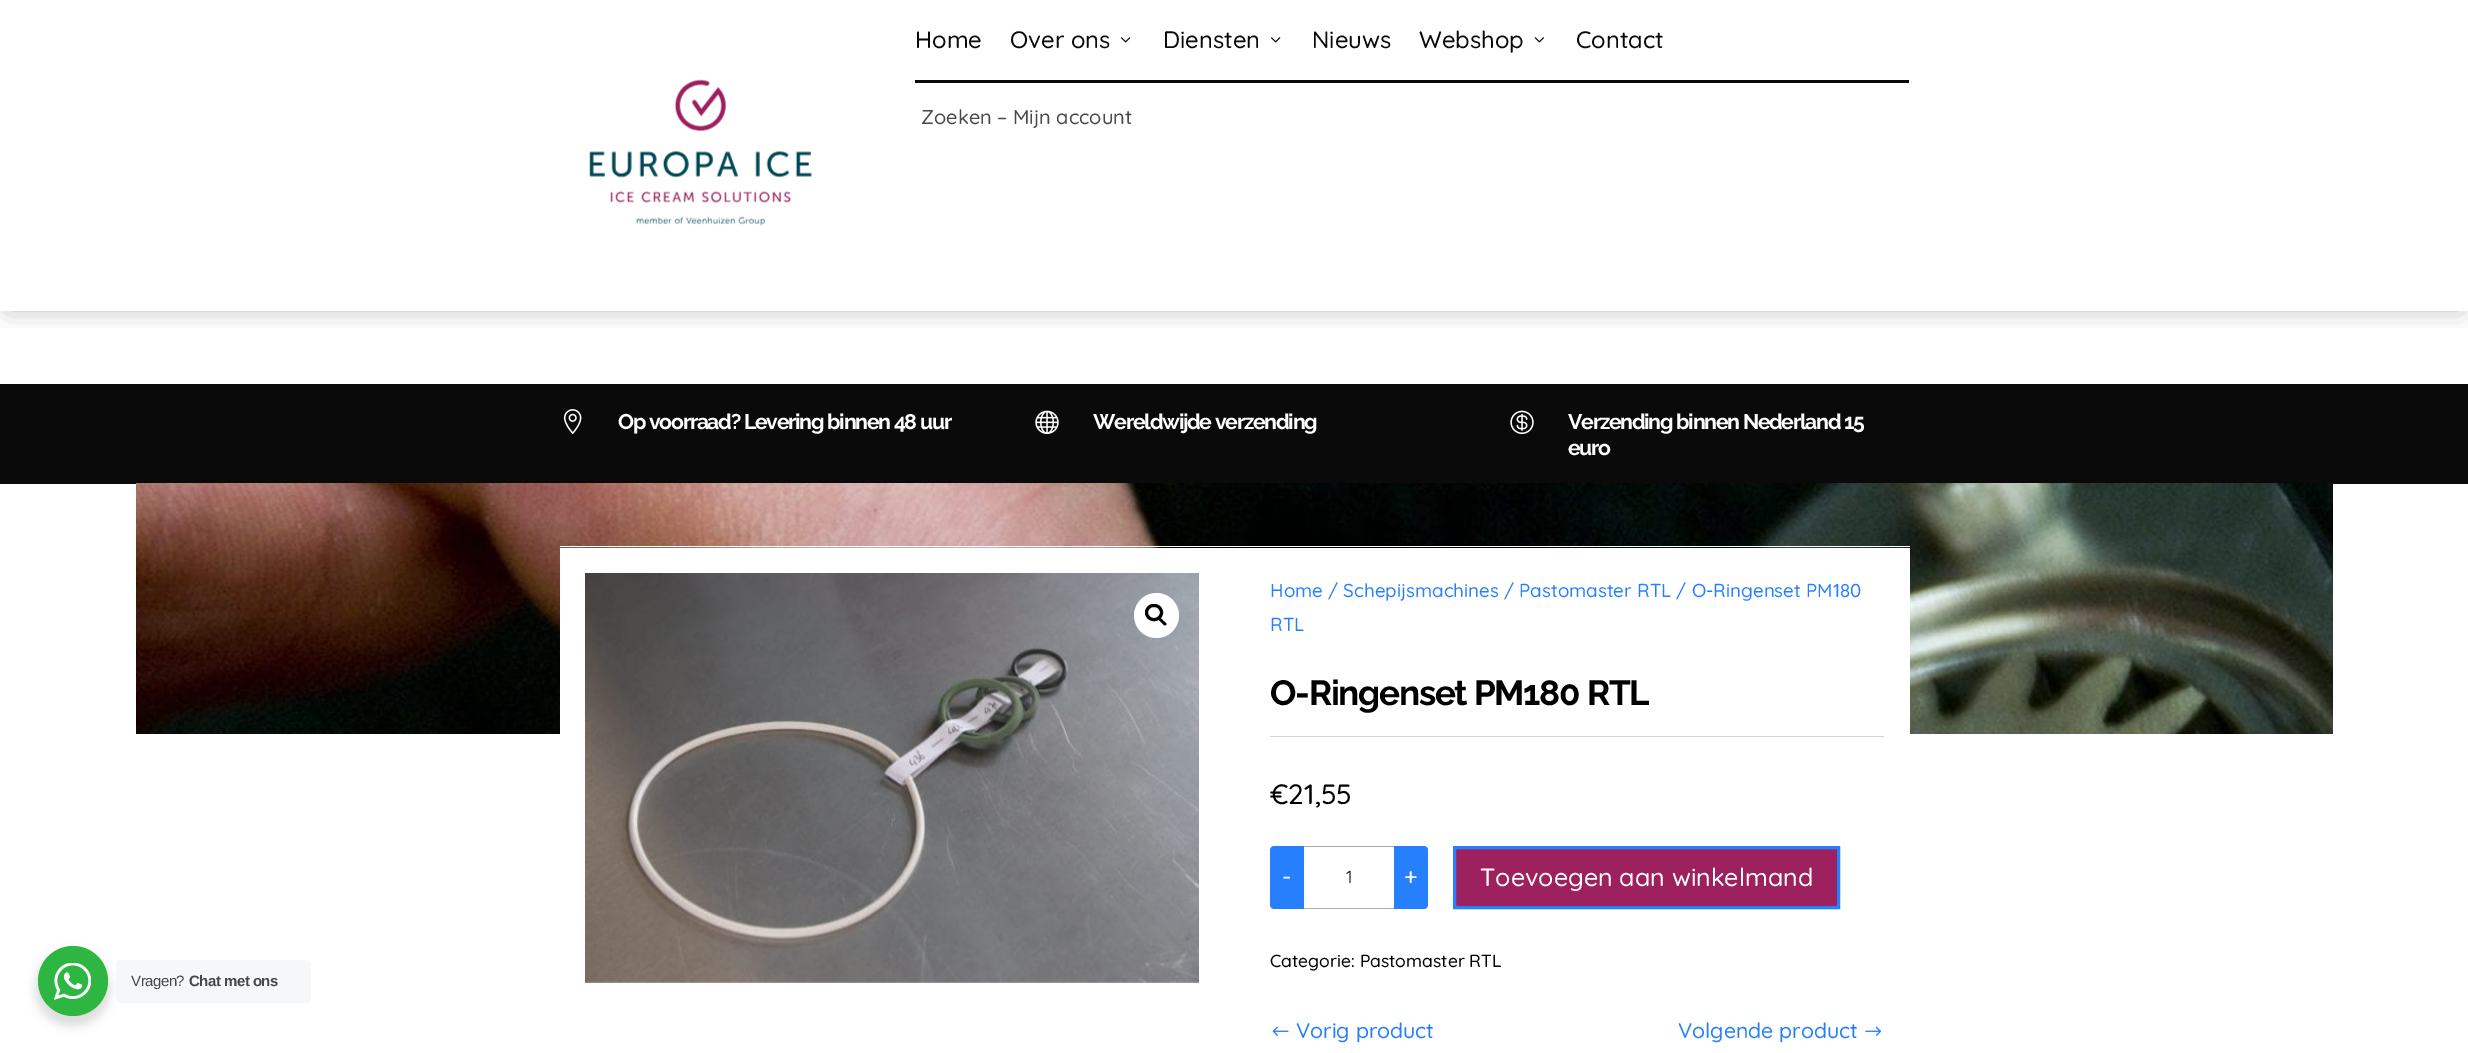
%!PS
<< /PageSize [2468 1053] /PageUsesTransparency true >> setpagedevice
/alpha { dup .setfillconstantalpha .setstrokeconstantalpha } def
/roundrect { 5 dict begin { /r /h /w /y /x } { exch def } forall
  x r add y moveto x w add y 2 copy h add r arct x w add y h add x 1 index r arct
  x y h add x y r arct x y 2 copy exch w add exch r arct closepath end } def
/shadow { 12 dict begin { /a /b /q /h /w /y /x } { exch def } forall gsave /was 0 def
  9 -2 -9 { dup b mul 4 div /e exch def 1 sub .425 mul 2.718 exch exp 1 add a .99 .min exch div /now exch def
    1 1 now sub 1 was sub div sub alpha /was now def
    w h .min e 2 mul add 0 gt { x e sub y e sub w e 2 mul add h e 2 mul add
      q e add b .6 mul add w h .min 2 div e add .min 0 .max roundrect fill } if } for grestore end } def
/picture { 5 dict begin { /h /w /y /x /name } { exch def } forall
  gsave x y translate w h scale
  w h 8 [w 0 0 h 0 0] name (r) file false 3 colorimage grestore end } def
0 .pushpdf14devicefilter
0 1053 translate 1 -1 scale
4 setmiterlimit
1 setgray
0 0 2468 1053 rectfill
0 setgray
35 951 75 75 37.5 5 0.14 shadow
0.176 0.718 0.259 setrgbcolor
newpath 73 981 35 0 360 arc closepath fill
(img1.rgb) 54 963 37 37 picture
0.961 0.969 0.976 setrgbcolor
116 960 195 43 5 roundrect fill
/LiberationSans-Regular [15 0 0 -15 0 0] selectfont
0.263 0.278 0.306 setrgbcolor
131 986 moveto -0.5 0 (Vragen?) ashow
/LiberationSans-Bold [15 0 0 -15 0 0] selectfont
189 986 moveto -0.5 0 (Chat met ons) ashow
gsave
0 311 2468 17 rectclip
0 setgray
8 13 2453 296 0 12.5 0.3 shadow
grestore
(img2.rgb) 589 79 223 147 picture
/Quicksand-Light [23.75 0 0 -23.75 0 0] selectfont
0.039 setgray
915 48 moveto (Home) show
1010 48 moveto (Over ons) show
(img3.rgb) 1121 37 10 6 picture
1163 48 moveto (Diensten) show
(img3.rgb) 1271 37 10 6 picture
1312 48 moveto (Nieuws) show
1419 48 moveto (Webshop) show
(img4.rgb) 1534 37 10 6 picture
1576 48 moveto (Contact) show
915 80 994 3 rectfill
/Quicksand-Light [20 0 0 -20 0 0] selectfont
0.286 setgray
921 124 moveto (Zoeken – Mijn account) show
0.039 setgray
0 384 2468 100 rectfill
(img5.rgb) 563 409 19 25 picture
/Raleway-Thin [21.25 0 0 -21.25 0 0] selectfont
1 setgray
618 429 moveto -1.25 0 (Op voorraad? Levering binnen 48 uur) ashow
(img6.rgb) 1035 410 24 25 picture
1093 429 moveto -1.25 0 (Wereldwijde verzending) ashow
(img7.rgb) 1510 410 24 25 picture
1568 429 moveto -1.25 0 (Verzending binnen Nederland 15) ashow
1568 455 moveto -1.25 0 (euro) ashow
(img8.rgb) 136 483 2197 251 picture
560 546 1350 1 rectfill
560 548 1350 186 rectfill
(img9.rgb) 585 573 614 410 picture
newpath 1156.5 615.5 22.5 0 360 arc closepath fill
0 setgray
3 setlinewidth
1146.5 605.5 15 14 7 roundrect stroke
newpath 1159 618 moveto 1160 616.5 1162.5 620 1163 620.5 curveto 1164 621.5 1167.5 623.5 1166 625 curveto 1164.5 626.5 1162 623 1161.5 622.5 curveto 1160.5 621.5 1157.5 619.5 1159 618 curveto closepath fill
/Quicksand-Light [18.75 0 0 -18.75 0 0] selectfont
0.149 0.502 0.996 setrgbcolor
1270 597 moveto (Home / Schepijsmachines / Pastomaster RTL / O-Ringenset PM180) show
1270 631 moveto (RTL) show
/Raleway-Thin [35 0 0 -35 0 0] selectfont
0 setgray
1270 705 moveto -1.25 0 (O-Ringenset PM180 RTL) ashow
0.827 setgray
1270 736 614 1 rectfill
/Quicksand-Light [28 0 0 -28 0 0] selectfont
0 setgray
1270 804 moveto (€21,55) show
0.149 0.502 0.996 setrgbcolor
newpath 1274 846 moveto 1304 846 lineto 1304 909 lineto 1274 909 lineto 1272 909 1270 907 1270 905 curveto 1270 850 lineto 1270 848 1272 846 1274 846 curveto closepath fill
/Quicksand-Light [23.75 0 0 -23.75 0 0] selectfont
1 setgray
1282 885 moveto (-) show
0.671 setgray
1304 846 90 1 rectfill
1304 908 90 1 rectfill
/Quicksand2-Light [17.5 0 0 -17.5 0 0] selectfont
0 setgray
1346 883 moveto (1) show
0.149 0.502 0.996 setrgbcolor
newpath 1394 846 moveto 1424 846 lineto 1426 846 1428 848 1428 850 curveto 1428 905 lineto 1428 907 1426 909 1424 909 curveto 1394 909 lineto closepath fill
/Quicksand-Light [23.75 0 0 -23.75 0 0] selectfont
1 setgray
1404 885 moveto (+) show
0.616 0.125 0.373 setrgbcolor
newpath 1454.5 847.5 moveto 1838.5 847.5 lineto 1838.5 907.5 lineto 1454.5 907.5 lineto closepath gsave fill grestore
0.149 0.502 0.996 setrgbcolor
stroke
/Quicksand-Light [25 0 0 -25 0 0] selectfont
1 setgray
1480 886 moveto (Toevoegen aan winkelmand) show
/Quicksand-Light [17.5 0 0 -17.5 0 0] selectfont
0 setgray
1270 967 moveto (Categorie: Pastomaster RTL) show
(img10.rgb) 1272 1026 17 10 picture
/Quicksand-Light [21.25 0 0 -21.25 0 0] selectfont
0.149 0.502 0.996 setrgbcolor
1296 1038 moveto (Vorig product) show
1678 1038 moveto (Volgende product) show
(img11.rgb) 1865 1026 17 10 picture
.poppdf14devicefilter showpage
